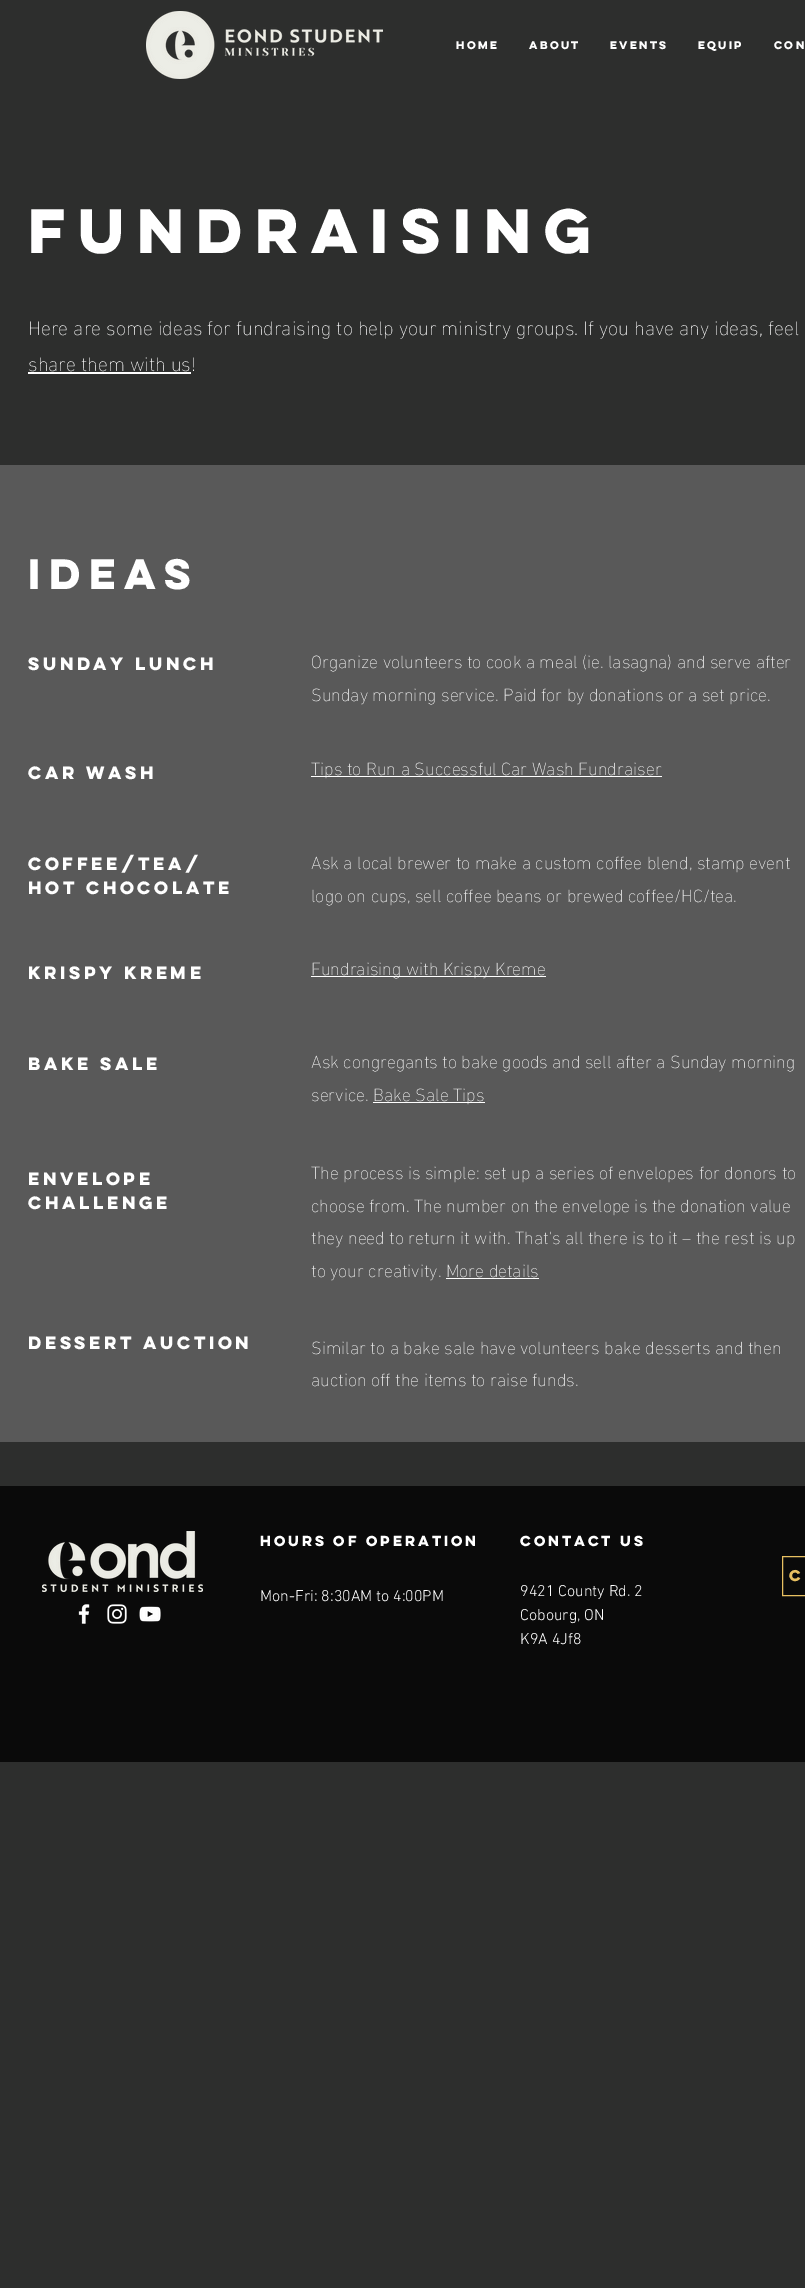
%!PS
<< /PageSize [805 2288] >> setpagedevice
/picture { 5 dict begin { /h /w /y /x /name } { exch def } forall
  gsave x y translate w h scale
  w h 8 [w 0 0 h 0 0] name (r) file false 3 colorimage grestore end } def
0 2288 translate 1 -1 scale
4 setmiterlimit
0.176 0.18 0.176 setrgbcolor
0 0 805 2288 rectfill
(img1.rgb) 146 11 237 68 picture
/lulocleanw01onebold-Bold [10 0 0 -10 0 0] selectfont
1 setgray
456 49 moveto (HOME) show
529 49 moveto (ABOUT) show
610 49 moveto (EVENTS) show
698 49 moveto (EQUIP) show
774 49 moveto (CON) show
/lulocleanw01onebold-Bold [56 0 0 -56 0 0] selectfont
28 253 moveto (FUNDRAISING) show
/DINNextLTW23-ExtraLight [20 0 0 -20 0 0] selectfont
28 335 moveto (Here are some ideas for fundraising to help your ministry groups. If you have any ideas, feel) show
28 371 moveto (share them with us!) show
28 372 163 2 rectfill
0.349 setgray
0 465 805 977 rectfill
/lulocleanw01onebold-Bold [38 0 0 -38 0 0] selectfont
1 setgray
28 589 moveto (ideas) show
/lulocleanw01onebold-Bold [16 0 0 -16 0 0] selectfont
28 670 moveto (SUNDAY LUNCH) show
/DINNextLTW23-ExtraLight [18 0 0 -18 0 0] selectfont
311 668 moveto (Organize volunteers to cook a meal \(ie. lasagna\) and serve after) show
311 701 moveto (Sunday morning service. Paid for by donations or a set price.) show
/lulocleanw01onebold-Bold [16 0 0 -16 0 0] selectfont
28 779 moveto (car wash) show
311 776 351 1 rectfill
/DINNextLTW23-ExtraLight [18 0 0 -18 0 0] selectfont
311 775 moveto (Tips to Run a Successful Car Wash Fundraiser) show
/lulocleanw01onebold-Bold [16 0 0 -16 0 0] selectfont
28 870 moveto (coffee/tea/) show
28 894 moveto (hot chocolate) show
/DINNextLTW23-ExtraLight [18 0 0 -18 0 0] selectfont
311 869 moveto (Ask a local brewer to make a custom coffee blend, stamp event) show
311 902 moveto (logo on cups, sell coffee beans or brewed coffee/HC/tea.) show
/lulocleanw01onebold-Bold [16 0 0 -16 0 0] selectfont
28 979 moveto (krispy kreme) show
311 976 235 1 rectfill
/DINNextLTW23-ExtraLight [18 0 0 -18 0 0] selectfont
311 975 moveto (Fundraising with Krispy Kreme) show
/lulocleanw01onebold-Bold [16 0 0 -16 0 0] selectfont
28 1070 moveto (bake sale) show
/DINNextLTW23-ExtraLight [18 0 0 -18 0 0] selectfont
311 1068 moveto (Ask congregants to bake goods and sell after a Sunday morning) show
311 1101 moveto (service.) show
373 1102 112 1 rectfill
373 1101 moveto (Bake Sale Tips) show
/lulocleanw01onebold-Bold [16 0 0 -16 0 0] selectfont
28 1185 moveto (envelope) show
28 1209 moveto (challenge) show
/DINNextLTW23-ExtraLight [18 0 0 -18 0 0] selectfont
311 1179 moveto (The process is simple: set up a series of envelopes for donors to) show
311 1212 moveto (choose from. The number on the envelope is the donation value) show
311 1244 moveto (they need to return it with. That's all there is to it – the rest is up) show
311 1277 moveto (to your creativity. More details) show
446 1278 93 1 rectfill
/lulocleanw01onebold-Bold [16 0 0 -16 0 0] selectfont
28 1349 moveto (dessert auction) show
/DINNextLTW23-ExtraLight [18 0 0 -18 0 0] selectfont
311 1354 moveto (Similar to a bake sale have volunteers bake desserts and then) show
311 1386 moveto (auction off the items to raise funds.) show
0.039 setgray
0 1486 805 276 rectfill
(img2.rgb) 42 1531 161 61 picture
(img3.rgb) 78 1604 12 20 picture
(img4.rgb) 107 1604 20 20 picture
(img5.rgb) 139 1606 22 16 picture
/lulocleanw01onebold-Bold [13 0 0 -13 0 0] selectfont
1 setgray
260 1546 moveto (Hours of operation) show
/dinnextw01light-Light [16 0 0 -16 0 0] selectfont
260 1601 moveto (Mon-Fri: 8:30AM to 4:00PM) show
/lulocleanw01onebold-Bold [13 0 0 -13 0 0] selectfont
520 1546 moveto (contact us) show
/dinnextw01light-Light [16 0 0 -16 0 0] selectfont
520 1596 moveto (9421 County Rd. 2) show
520 1620 moveto (Cobourg, ON) show
520 1644 moveto (K9A 4Jf8) show
0.91 0.753 0.38 setrgbcolor
782.5 1556.5 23 39 rectstroke
/lulocleanw01onebold-Bold [14 0 0 -14 0 0] selectfont
789 1581 moveto (C) show
showpage
